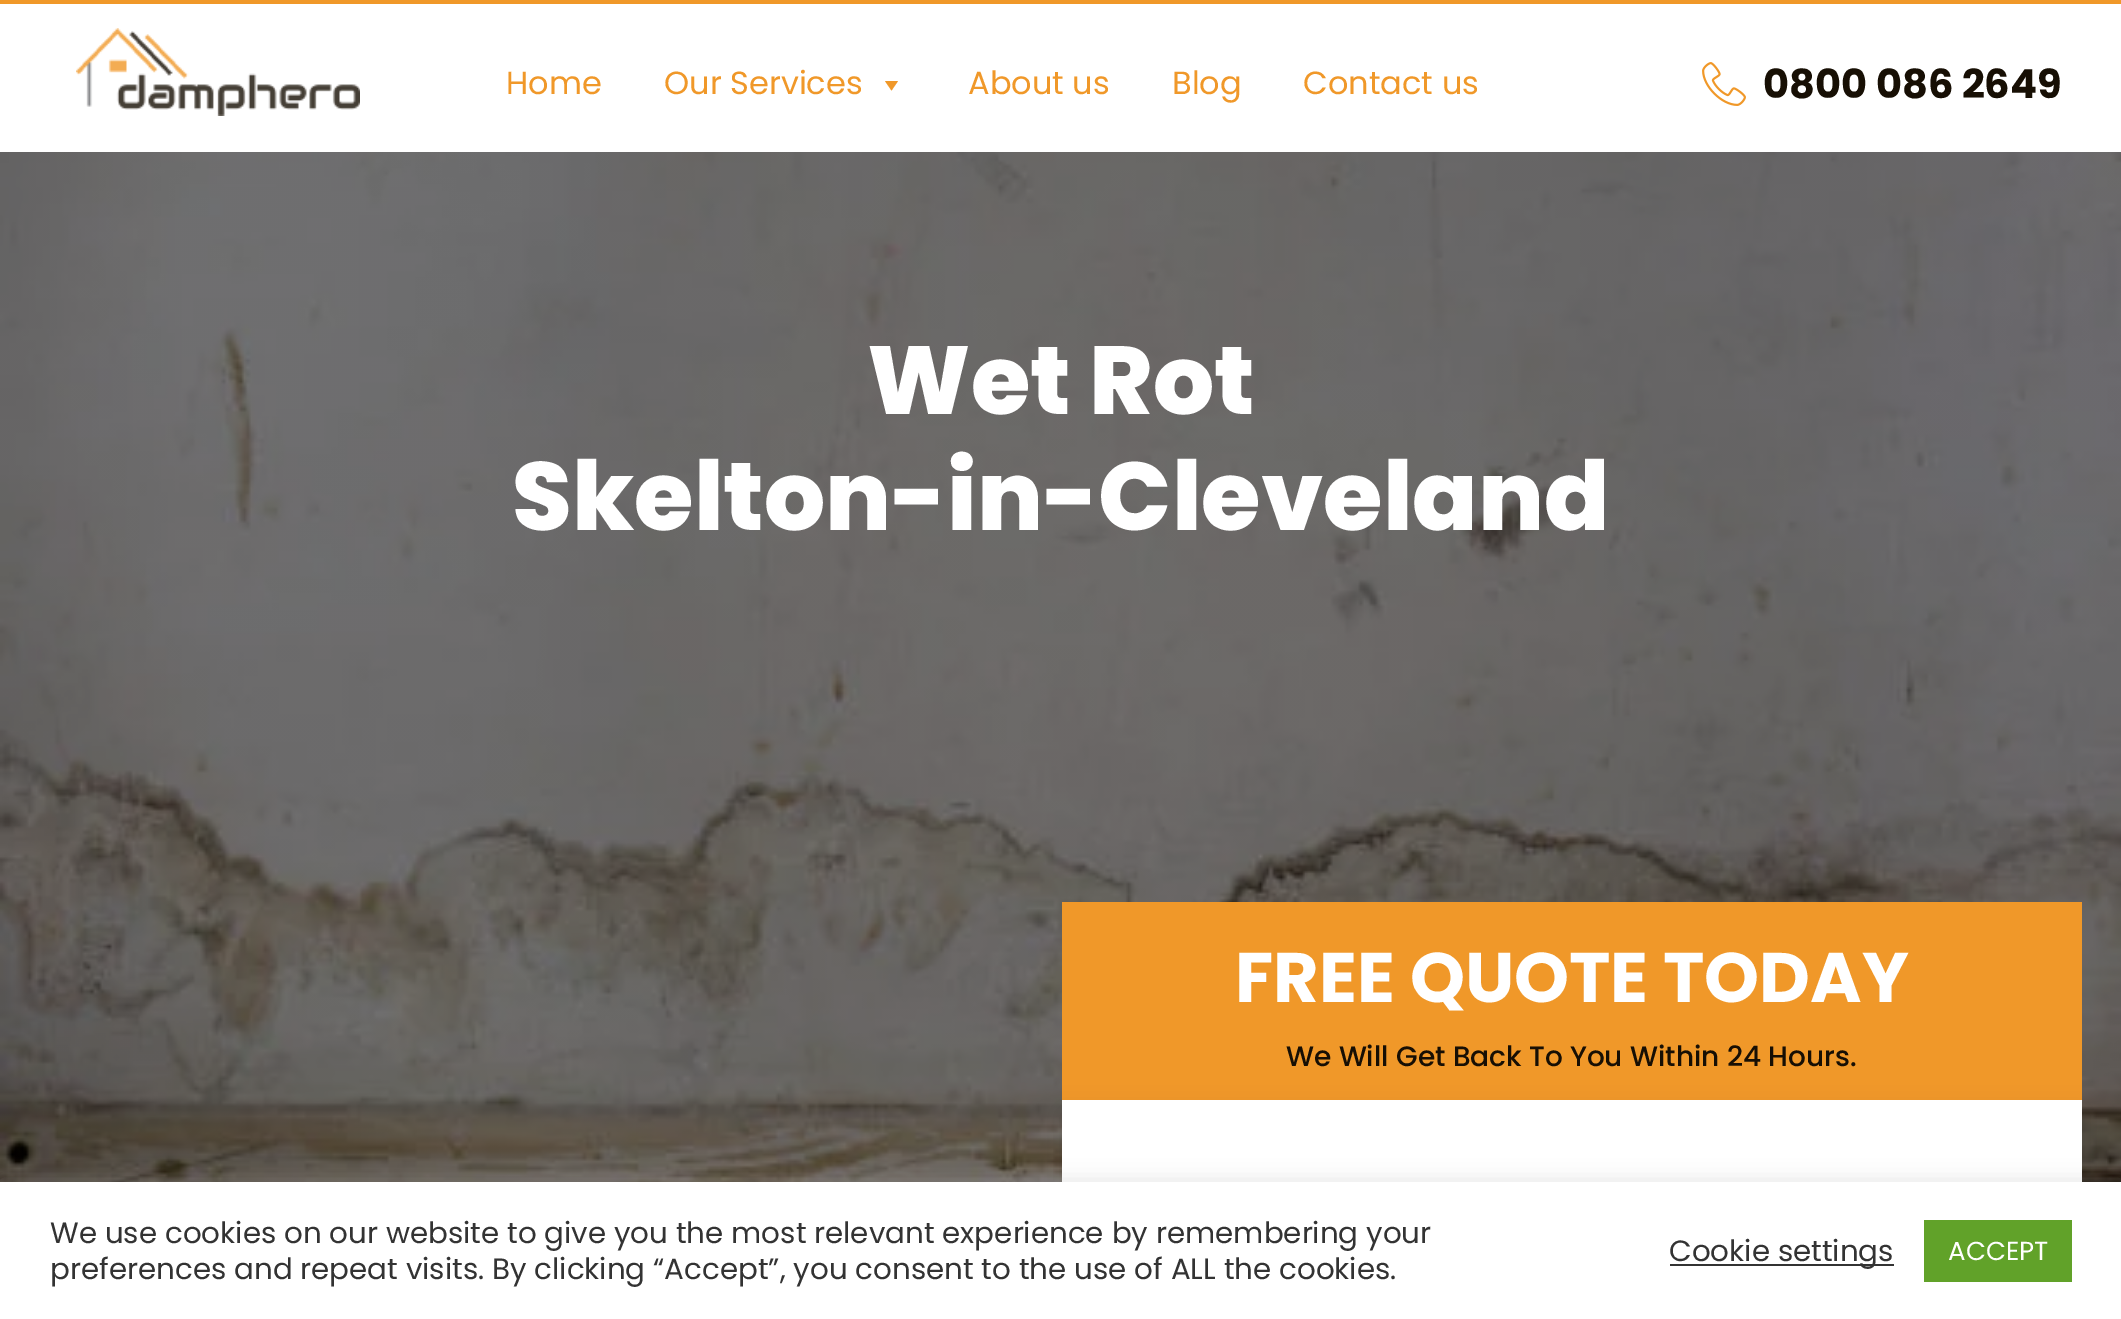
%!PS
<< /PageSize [2121 1319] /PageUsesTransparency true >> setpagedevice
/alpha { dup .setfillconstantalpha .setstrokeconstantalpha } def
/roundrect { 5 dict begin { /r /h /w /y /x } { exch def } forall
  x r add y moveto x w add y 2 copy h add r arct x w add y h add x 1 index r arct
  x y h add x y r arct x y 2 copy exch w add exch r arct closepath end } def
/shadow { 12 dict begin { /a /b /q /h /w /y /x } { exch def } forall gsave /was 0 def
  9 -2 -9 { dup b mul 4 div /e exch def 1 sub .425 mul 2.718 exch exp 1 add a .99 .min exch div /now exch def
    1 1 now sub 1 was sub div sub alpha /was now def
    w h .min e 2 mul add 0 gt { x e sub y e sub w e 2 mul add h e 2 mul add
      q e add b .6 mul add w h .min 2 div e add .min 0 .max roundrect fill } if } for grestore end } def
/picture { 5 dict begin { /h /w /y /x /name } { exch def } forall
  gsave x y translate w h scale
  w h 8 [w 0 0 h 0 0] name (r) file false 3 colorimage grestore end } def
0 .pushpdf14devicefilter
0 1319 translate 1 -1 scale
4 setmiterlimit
1 setgray
0 0 2121 1319 rectfill
0.941 0.596 0.161 setrgbcolor
0 0 2121 4 rectfill
(img1.rgb) 76 28 284 88 picture
/Poppins-Regular [32 0 0 -32 0 0] selectfont
506 94 moveto (Home) show
664 94 moveto (Our Services) show
newpath 898 81 moveto 891.5 90.5 lineto 885 81 lineto closepath fill
968 94 moveto (About us) show
1172 94 moveto (Blog) show
1303 94 moveto (Contact us) show
(img2.rgb) 1702 62 44 44 picture
/Poppins-Bold [40 0 0 -40 0 0] selectfont
0.09 0.059 0.016 setrgbcolor
1763 98 moveto (0800 086 2649) show
(img3.rgb) 0 152 2121 1030 picture
/Poppins-ExtraBold [96.4 0 0 -96.4 0 0] selectfont
1 setgray
867 414 moveto (Wet Rot) show
512 530 moveto (Skelton-in-Cleveland) show
1062 1100 1020 82 rectfill
0.941 0.596 0.161 setrgbcolor
1062 902 1020 198 rectfill
/Poppins-Bold [70 0 0 -70 0 0] selectfont
1 setgray
1235 1002 moveto (FREE QUOTE TODAY) show
/Poppins-Medium [28 0 0 -28 0 0] selectfont
0.09 0.059 0.016 setrgbcolor
1286 1066 moveto (We Will Get Back To You Within 24 Hours.) show
gsave
newpath 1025 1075 moveto 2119 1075 lineto 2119 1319 lineto 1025 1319 lineto closepath 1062 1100 moveto 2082 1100 lineto 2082 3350 lineto 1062 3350 lineto closepath eoclip newpath
0 setgray
1062 1112 1020 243 0 12 0.1 shadow
grestore
0.675 0.671 0.671 setrgbcolor
0 1180 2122 138 0 10 0.3 shadow
1 setgray
0 1182 2121 137 rectfill
/Poppins-Regular [29.35 0 0 -29.35 0 0] selectfont
0.2 setgray
50 1243 moveto (We use cookies on our website to give you the most relevant experience by remembering your) show
50 1279 moveto (preferences and repeat visits. By clicking “Accept”, you consent to the use of ALL the cookies.) show
1670 1264 224 2 rectfill
1669 1261 moveto (Cookie settings) show
0.38 0.635 0.161 setrgbcolor
1924 1220 148 62 rectfill
/Poppins-Regular [26 0 0 -26 0 0] selectfont
1 setgray
1948 1260 moveto (ACCEPT) show
.poppdf14devicefilter showpage
